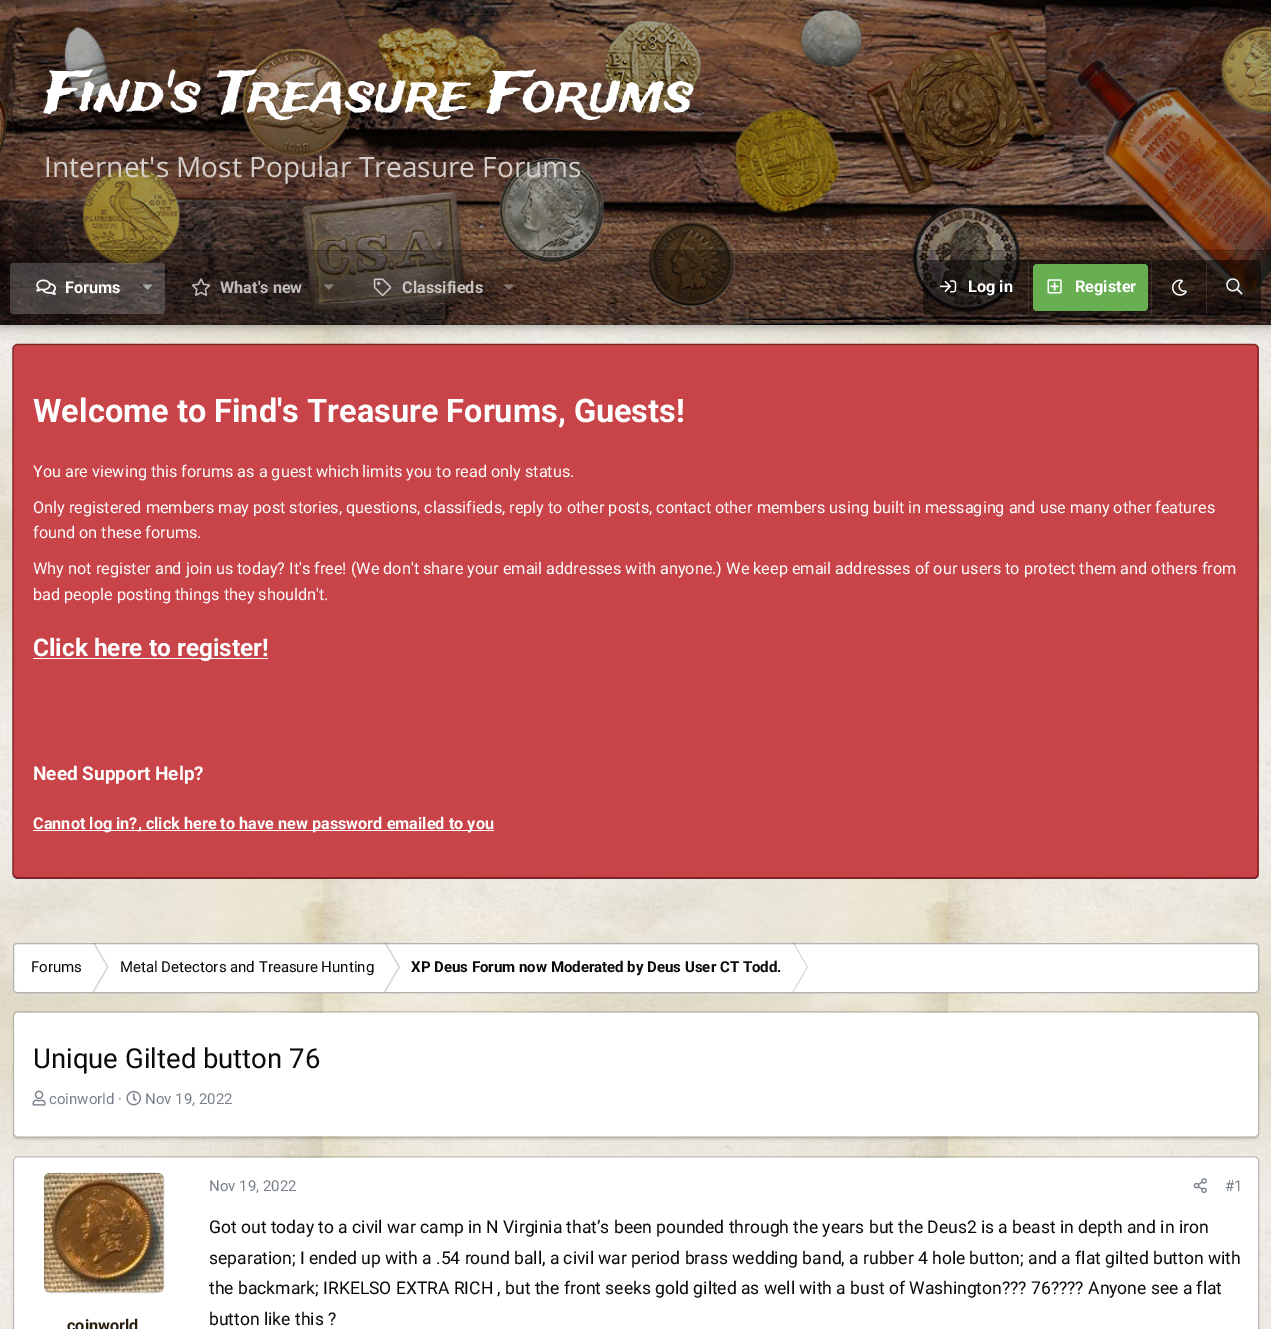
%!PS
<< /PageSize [1271 1329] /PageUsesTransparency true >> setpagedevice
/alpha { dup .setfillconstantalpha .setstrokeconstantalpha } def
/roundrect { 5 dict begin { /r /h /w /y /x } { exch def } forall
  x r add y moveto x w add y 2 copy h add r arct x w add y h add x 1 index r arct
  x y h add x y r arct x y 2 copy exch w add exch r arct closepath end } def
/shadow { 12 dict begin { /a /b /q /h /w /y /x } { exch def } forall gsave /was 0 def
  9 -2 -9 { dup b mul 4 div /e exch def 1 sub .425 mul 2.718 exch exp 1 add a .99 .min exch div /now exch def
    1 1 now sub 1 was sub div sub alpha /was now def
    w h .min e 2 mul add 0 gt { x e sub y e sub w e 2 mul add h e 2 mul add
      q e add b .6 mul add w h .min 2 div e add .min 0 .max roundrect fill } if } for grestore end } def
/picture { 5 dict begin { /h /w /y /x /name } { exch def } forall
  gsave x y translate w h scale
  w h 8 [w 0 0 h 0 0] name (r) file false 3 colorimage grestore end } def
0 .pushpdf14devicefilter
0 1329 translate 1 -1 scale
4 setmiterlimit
1 setgray
0 0 1271 1329 rectfill
(img1.rgb) 0 320 1271 1009 picture
0.784 0.267 0.282 setrgbcolor
13 344 1246 535 5 roundrect fill
0.349 0.102 0.11 setrgbcolor
1.2 setlinewidth
newpath 1257 877 moveto 1254 878 lineto 17.5 878 lineto 14.5 877 lineto stroke
0.502 0.149 0.157 setrgbcolor
newpath 14.5 877 moveto 13 874 lineto 13 349 lineto 13 346.5 15 344.5 17.5 344.5 curveto 1254 344.5 lineto 1256 344.5 1258 346.5 1258 349 curveto 1258 874 lineto 1257 877 lineto stroke
0 setgray
0 1 1271 325 0 6 0.35 shadow
(img2.rgb) 0 320 1271 5 picture
(img3.rgb) 0 0 1271 320 picture
/TradeWinds-Regular [56.25 0 0 -56.25 0 0] selectfont
1 setgray
44 111 moveto (Find's Treasure Forums) show
/OpenSans-Regular [28.1 0 0 -28.1 0 0] selectfont
0.839 0.812 0.8 setrgbcolor
44 177 moveto (Internet's Most Popular Treasure Forums) show
0.2 alpha
0 setgray
0 250 1271 75 rectfill
0 250 1271 1 rectfill
0 324 1271 1 rectfill
1 setgray
10 263 155 51 4 roundrect fill
1 alpha
(img4.rgb) 36 279 20 16 picture
/Roboto-Bold [16.25 0 0 -16.25 0 0] selectfont
65 293 moveto (Forums) show
(img5.rgb) 143 284 10 6 picture
(img6.rgb) 192 278 19 18 picture
0.753 0.737 0.733 setrgbcolor
220 293 moveto (What's new) show
(img7.rgb) 324 284 10 6 picture
(img8.rgb) 373 278 19 18 picture
0.78 0.769 0.757 setrgbcolor
402 293 moveto (Classifieds) show
(img9.rgb) 504 284 10 6 picture
0.5 alpha
0 setgray
923 260 338 55 4 roundrect fill
1 alpha
(img10.rgb) 940 280 17 13 picture
1 setgray
968 292 moveto (Log in) show
0.1 alpha
1028 260 1 55 rectfill
1 alpha
0.404 0.686 0.318 setrgbcolor
1033 264 115 47 4 roundrect fill
(img11.rgb) 1047 279 15 15 picture
1 setgray
1075 292 moveto (Register) show
0.1 alpha
1151 260 1 55 rectfill
1 alpha
(img12.rgb) 1172 279 15 17 picture
0.1 alpha
1206 260 1 55 rectfill
1 alpha
(img13.rgb) 1226 278 17 17 picture
/Roboto-Bold [32.5 0 0 -32.5 0 0] selectfont
33 422 moveto (Welcome to Find's Treasure Forums, Guests!) show
/Roboto-Regular [16.25 0 0 -16.25 0 0] selectfont
33 477 moveto (You are viewing this forums as a guest which limits you to read only status.) show
33 513 moveto (Only registered members may post stories, questions, classifieds, reply to other posts, contact other members using built in messaging and use many other features) show
33 538 moveto (found on these forums.) show
33 574 moveto (Why not register and join us today? It's free! \(We don't share your email addresses with anyone.\) We keep email addresses of our users to protect them and others from) show
33 600 moveto (bad people posting things they shouldn't.) show
33 658 235 1 rectfill
/Roboto-Bold [24.4 0 0 -24.4 0 0] selectfont
33 656 moveto (Click here to register!) show
/Roboto-Bold [19 0 0 -19 0 0] selectfont
33 780 moveto (Need Support Help?) show
33 830 461 1 rectfill
/Roboto-Bold [16.25 0 0 -16.25 0 0] selectfont
33 829 moveto (Cannot log in?, click here to have new password emailed to you) show
13 943 1246 50 4 roundrect fill
gsave
13 943 1246 50 rectclip
0.839 setgray
newpath 92.5 942 moveto 94 942 lineto 108.5 967 lineto 107 967 lineto closepath fill
grestore
0.839 setgray
newpath 107 967 moveto 108.5 967 lineto 94 992 lineto 92.5 992 lineto closepath fill
newpath 384 942 moveto 385.5 942 lineto 400 967 lineto 398.5 967 lineto closepath 398.5 967 moveto 400 967 lineto 385.5 992 lineto 384 992 lineto closepath fill
newpath 792.5 942 moveto 793.5 942 lineto 808 967 lineto 807 967 lineto closepath 807 967 moveto 808 967 lineto 793.5 992 lineto 792.5 992 lineto closepath fill
0.3 alpha
0 setgray
1 setlinewidth
13.5 943.5 1245 49 3.5 roundrect stroke
/Roboto-Regular [15 0 0 -15 0 0] selectfont
1 alpha
0.035 0.039 0.039 setrgbcolor
31 972 moveto (Forums) show
120 972 moveto (Metal Detectors and Treasure Hunting) show
/Roboto-Bold [15 0 0 -15 0 0] selectfont
411 972 moveto (XP Deus Forum now Moderated by Deus User CT Todd.) show
0 setgray
13 1014 1246 126 5 1 0.08 shadow
1 setgray
14 1013 1244 123 4 roundrect fill
0.16 alpha
0.078 setgray
13.5 1011.5 1245 126 4.5 roundrect stroke
/Roboto-Regular [27.5 0 0 -27.5 0 0] selectfont
1 alpha
0.035 0.039 0.039 setrgbcolor
33 1068 moveto (Unique Gilted button 76) show
(img14.rgb) 32 1090 14 16 picture
/Roboto-Regular [15 0 0 -15 0 0] selectfont
0.475 0.502 0.541 setrgbcolor
49 1104 moveto (coinworld ·) show
(img15.rgb) 126 1090 15 16 picture
145 1104 moveto (Nov 19, 2022) show
0 setgray
13 1159 1246 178 5 1 0.08 shadow
1 setgray
14 1158 1244 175 4 roundrect fill
0.16 alpha
0.078 setgray
13.5 1156.5 1245 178 4.5 roundrect stroke
1 alpha
(img16.rgb) 44 1172 120 121 picture
0.15 alpha
0.035 0.039 0.039 setrgbcolor
44.5 1173.5 119 119 5.5 roundrect stroke
/Roboto-Bold [16.25 0 0 -16.25 0 0] selectfont
1 alpha
0.169 0.114 0.055 setrgbcolor
67 1331 moveto (coinworld) show
/Roboto-Regular [15 0 0 -15 0 0] selectfont
0.475 0.502 0.541 setrgbcolor
209 1191 moveto (Nov 19, 2022) show
(img17.rgb) 1193 1178 14 16 picture
1225 1191 moveto (#1) show
/Roboto-Regular [17.5 0 0 -17.5 0 0] selectfont
0.035 0.039 0.039 setrgbcolor
209 1233 moveto (Got out today to a civil war camp in N Virginia that’s been pounded through the years but the Deus2 is a beast in depth and in iron) show
209 1264 moveto (separation; I ended up with a .54 round ball, a civil war period brass wedding band, a rubber 4 hole button; and a flat gilted button with) show
209 1294 moveto (the backmark; IRKELSO EXTRA RICH , but the front seeks gold gilted as well with a bust of Washington??? 76???? Anyone see a flat) show
209 1325 moveto (button like this ?) show
.poppdf14devicefilter showpage
